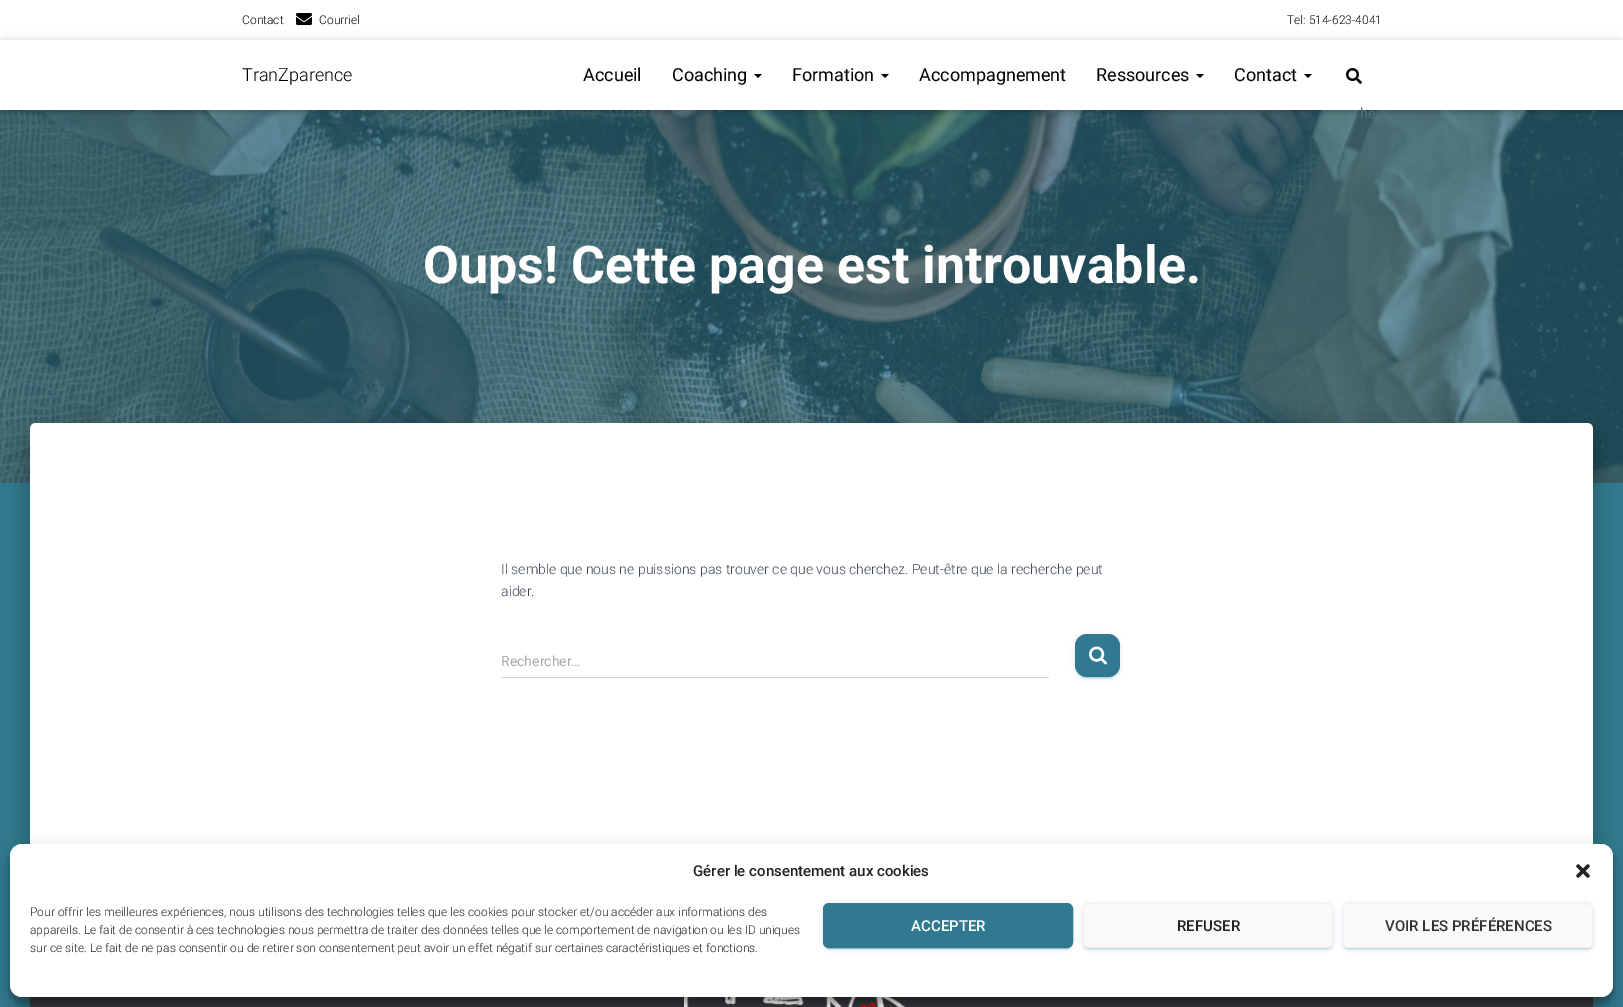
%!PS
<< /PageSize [1623 1007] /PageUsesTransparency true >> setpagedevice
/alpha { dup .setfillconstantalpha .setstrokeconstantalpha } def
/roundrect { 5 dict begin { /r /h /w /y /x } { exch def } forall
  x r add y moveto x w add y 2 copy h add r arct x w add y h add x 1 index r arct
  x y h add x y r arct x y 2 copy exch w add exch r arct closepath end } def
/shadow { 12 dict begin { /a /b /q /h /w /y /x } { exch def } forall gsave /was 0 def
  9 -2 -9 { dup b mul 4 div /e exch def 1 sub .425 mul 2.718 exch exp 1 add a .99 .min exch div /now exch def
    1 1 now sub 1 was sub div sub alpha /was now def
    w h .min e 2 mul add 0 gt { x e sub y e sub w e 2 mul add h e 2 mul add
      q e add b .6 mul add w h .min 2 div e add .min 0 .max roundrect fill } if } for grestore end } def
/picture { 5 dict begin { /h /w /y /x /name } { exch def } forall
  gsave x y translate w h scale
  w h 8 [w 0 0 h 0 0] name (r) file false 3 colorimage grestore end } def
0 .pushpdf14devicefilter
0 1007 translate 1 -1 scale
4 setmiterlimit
0.192 0.475 0.569 setrgbcolor
0 0 1623 1007 rectfill
1 setgray
0 0 1623 40 rectfill
/Roboto-Light [12 0 0 -12 0 0] selectfont
0 setgray
242 24 moveto (Contact) show
(img1.rgb) 296 13 16 12 picture
319 24 moveto (Courriel) show
1287 24 moveto (Tel: 514-623-4041) show
(img3.rgb) 0 110 1623 373 picture
2 46 1619 66 0 2.5 0.1 shadow
0 41 1623 70 0 5 0.12 shadow
6 47 1611 58 0 5 0.42 shadow
1 setgray
0 40 1623 70 rectfill
/Roboto-Light [18 0 0 -18 0 0] selectfont
0 setgray
242 81 moveto (TranZparence) show
/Roboto-Regular [18 0 0 -18 0 0] selectfont
583 81 moveto (Accueil) show
672 81 moveto (Coaching) show
newpath 754 74 moveto 762 74 lineto 758 78 lineto closepath fill
792 81 moveto (Formation) show
newpath 881 74 moveto 889 74 lineto 885 78 lineto closepath fill
919 81 moveto (Accompagnement) show
1096 81 moveto (Ressources) show
newpath 1196 74 moveto 1204 74 lineto 1200 78 lineto closepath fill
1234 81 moveto (Contact) show
newpath 1304 74 moveto 1312 74 lineto 1308 78 lineto closepath fill
(img2.rgb) 1346 68 16 16 picture
/Roboto-Regular [14 0 0 -14 0 0] selectfont
0.322 0.443 0.471 setrgbcolor
1360 118 moveto (he) show
/Roboto-Bold [52 0 0 -52 0 0] selectfont
1 setgray
423 283 moveto (Oups! Cette page est introuvable.) show
0 setgray
35 436 1553 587 1 5 0.2 shadow
25 424 1573 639 11 15 0.12 shadow
28 437 1567 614 8 12 0.14 shadow
1 setgray
newpath 36 423 moveto 1587 423 lineto 1590.5 423 1593 425.5 1593 429 curveto 1593 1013 lineto 30 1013 lineto 30 429 lineto 30 425.5 32.5 423 36 423 curveto closepath fill
/Roboto-Light [14 0 0 -14 0 0] selectfont
0.235 0.282 0.345 setrgbcolor
501 574 moveto (Il semble que nous ne puissions pas trouver ce que vous cherchez. Peut-être que la recherche peut) show
501 596 moveto (aider.) show
/Roboto-Regular [14 0 0 -14 0 0] selectfont
0.667 setgray
501 666 moveto (Rechercher…) show
0.824 setgray
501 677 548 1 rectfill
0.192 0.475 0.569 setrgbcolor
1075 635 45 43 12 2.5 0.12 shadow
1077 639 41 39 10 0.5 0.2 shadow
1075 636 45 43 12 1 0.14 shadow
1075 634 45 43 12 roundrect fill
(img4.rgb) 1089 646 18 19 picture
0.196 0.204 0.216 setrgbcolor
30 997 1563 10 rectfill
(img5.rgb) 684 997 222 10 picture
0 setgray
10 850 1603 153 12 3 0.23 shadow
10 854 1603 153 12 10 0.19 shadow
1 setgray
10 844 1603 153 12 roundrect fill
/Roboto-Medium [15 0 0 -15 0 0] selectfont
0.133 setgray
693 876 moveto (Gérer le consentement aux cookies) show
(img6.rgb) 1576 864 14 14 picture
/Roboto-Light [12 0 0 -12 0 0] selectfont
30 916 moveto (Pour offrir les meilleures expériences, nous utilisons des technologies telles que les cookies pour stocker et/ou accéder aux informations des) show
30 934 moveto (appareils. Le fait de consentir à ces technologies nous permettra de traiter des données telles que le comportement de navigation ou les ID uniques) show
30 952 moveto (sur ce site. Le fait de ne pas consentir ou de retirer son consentement peut avoir un effet négatif sur certaines caractéristiques et fonctions.) show
0.192 0.475 0.569 setrgbcolor
823 904 250 45 6 2.5 0.12 shadow
825 908 246 41 4 0.5 0.2 shadow
823 905 250 45 6 1 0.14 shadow
823.5 903.5 249 44 5.5 roundrect gsave fill grestore
stroke
/Roboto-Medium [15 0 0 -15 0 0] selectfont
1 setgray
911 931 moveto (ACCEPTER) show
0.192 0.475 0.569 setrgbcolor
1083 904 250 45 6 2.5 0.12 shadow
1085 908 246 41 4 0.5 0.2 shadow
1083 905 250 45 6 1 0.14 shadow
0.976 setgray
1083.5 903.5 249 44 5.5 roundrect gsave fill grestore
0.949 setgray
stroke
0.133 setgray
1177 931 moveto (REFUSER) show
0.192 0.475 0.569 setrgbcolor
1343 904 250 45 6 2.5 0.12 shadow
1345 908 246 41 4 0.5 0.2 shadow
1343 905 250 45 6 1 0.14 shadow
0.976 setgray
1343.5 903.5 249 44 5.5 roundrect gsave fill grestore
0.949 setgray
stroke
0.2 setgray
1385 931 moveto (VOIR LES PRÉFÉRENCES) show
.poppdf14devicefilter showpage
